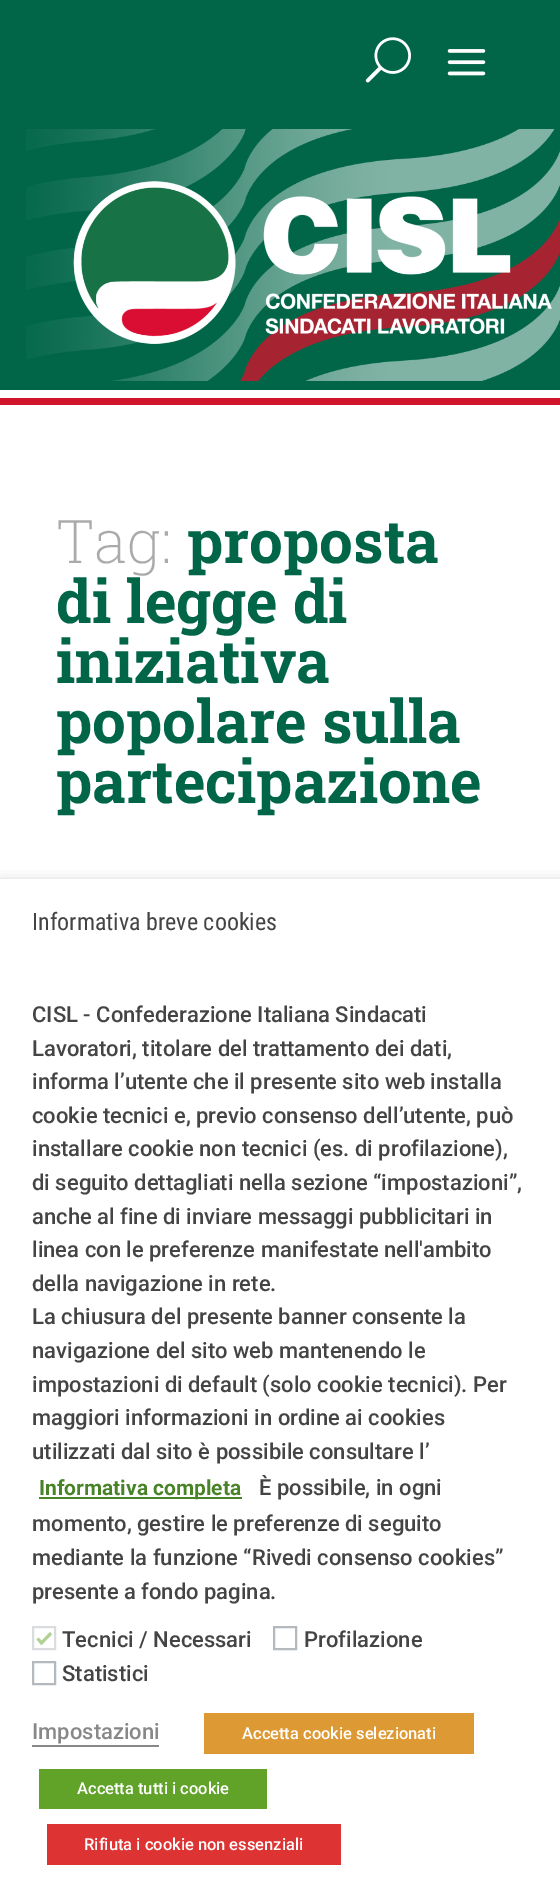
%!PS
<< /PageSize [560 1888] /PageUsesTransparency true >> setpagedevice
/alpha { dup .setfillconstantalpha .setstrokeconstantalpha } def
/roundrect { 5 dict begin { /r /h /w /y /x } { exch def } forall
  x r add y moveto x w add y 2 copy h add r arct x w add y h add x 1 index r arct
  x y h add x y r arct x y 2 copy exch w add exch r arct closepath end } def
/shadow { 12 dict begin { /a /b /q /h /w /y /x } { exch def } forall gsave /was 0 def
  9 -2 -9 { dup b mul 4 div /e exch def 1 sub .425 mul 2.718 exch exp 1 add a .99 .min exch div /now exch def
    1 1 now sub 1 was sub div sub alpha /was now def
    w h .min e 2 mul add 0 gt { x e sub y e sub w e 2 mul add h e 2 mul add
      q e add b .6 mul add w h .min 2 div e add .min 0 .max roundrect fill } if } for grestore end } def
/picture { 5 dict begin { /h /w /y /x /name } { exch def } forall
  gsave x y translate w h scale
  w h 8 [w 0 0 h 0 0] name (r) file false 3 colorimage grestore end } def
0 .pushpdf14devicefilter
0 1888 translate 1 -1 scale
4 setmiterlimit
1 setgray
0 0 560 1888 rectfill
0.004 0.4 0.282 setrgbcolor
0 0 560 390 rectfill
(img1.rgb) 365 37 46 46 picture
(img2.rgb) 447 49 39 27 picture
(img3.rgb) 26 129 534 252 picture
(img4.rgb) 73 181 479 163 picture
0.816 0.078 0.173 setrgbcolor
0 398 560 7 rectfill
/RobotoSlab-ExtraLight [60 0 0 -60 0 0] selectfont
0.667 setgray
56 563 moveto (Tag:) show
/RobotoSlab-Bold [60 0 0 -60 0 0] selectfont
0.004 0.4 0.282 setrgbcolor
187 563 moveto (proposta) show
56 623 moveto (di legge di) show
56 683 moveto (iniziativa) show
56 743 moveto (popolare sulla) show
56 803 moveto (partecipazione) show
0 setgray
0 887 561 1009 0 7.5 0.5 shadow
1 setgray
0 879 560 1009 rectfill
/RobotoCondensed-Regular [24 0 0 -24 0 0] selectfont
0.267 setgray
32 930 moveto (Informativa breve cookies) show
/Roboto-Medium [22 0 0 -22 0 0] selectfont
32 1022 moveto (CISL - Confederazione Italiana Sindacati) show
32 1056 moveto (Lavoratori, titolare del trattamento dei dati,) show
32 1089 moveto (informa l’utente che il presente sito web installa) show
32 1123 moveto (cookie tecnici e, previo consenso dell’utente, può) show
32 1156 moveto (installare cookie non tecnici \(es. di profilazione\),) show
32 1190 moveto (di seguito dettagliati nella sezione “impostazioni”,) show
32 1224 moveto (anche al fine di inviare messaggi pubblicitari in) show
32 1257 moveto (linea con le preferenze manifestate nell'ambito) show
32 1291 moveto (della navigazione in rete.) show
32 1324 moveto (La chiusura del presente banner consente la) show
32 1358 moveto (navigazione del sito web mantenendo le) show
32 1392 moveto (impostazioni di default \(solo cookie tecnici\). Per) show
32 1425 moveto (maggiori informazioni in ordine ai cookies) show
32 1459 moveto (utilizzati dal sito è possibile consultare l’) show
0.282 0.518 0.153 setrgbcolor
39 1497 203 2 rectfill
/Roboto-Bold [21 0 0 -21 0 0] selectfont
39 1495 moveto (Informativa completa) show
/Roboto-Medium [22 0 0 -22 0 0] selectfont
0.267 setgray
259 1495 moveto (È possibile, in ogni) show
32 1531 moveto (momento, gestire le preferenze di seguito) show
32 1565 moveto (mediante la funzione “Rivedi consenso cookies”) show
32 1599 moveto (presente a fondo pagina.) show
0.855 0.863 0.875 setrgbcolor
2 setlinewidth
33 1627 22 22 rectstroke
0.69 0.82 0.58 setrgbcolor
newpath 50 1632 moveto 52 1634.5 lineto 41.5 1645 lineto 39.5 1643 lineto closepath fill
newpath 38.5 1637.5 moveto 43.5 1643 lineto 41.5 1645 lineto 36.5 1639.5 lineto closepath fill
0.267 setgray
62 1647 moveto (Tecnici / Necessari) show
0.706 0.725 0.745 setrgbcolor
274 1627 22 22 rectstroke
0.267 setgray
304 1647 moveto (Profilazione) show
0.706 0.725 0.745 setrgbcolor
33 1662 22 22 rectstroke
0.267 setgray
62 1681 moveto (Statistici) show
0.537 0.533 0.533 setrgbcolor
32 1739 moveto (Impostazioni) show
32 1745 127 2 rectfill
0.867 0.6 0.2 setrgbcolor
204 1713 270 41 rectfill
/Roboto-Medium [16.5 0 0 -16.5 0 0] selectfont
1 setgray
242 1739 moveto (Accetta cookie selezionati) show
0.38 0.635 0.161 setrgbcolor
39 1769 228 40 rectfill
1 setgray
77 1794 moveto (Accetta tutti i cookie) show
0.867 0.2 0.2 setrgbcolor
47 1824 294 41 rectfill
1 setgray
84 1850 moveto (Rifiuta i cookie non essenziali) show
.poppdf14devicefilter showpage
